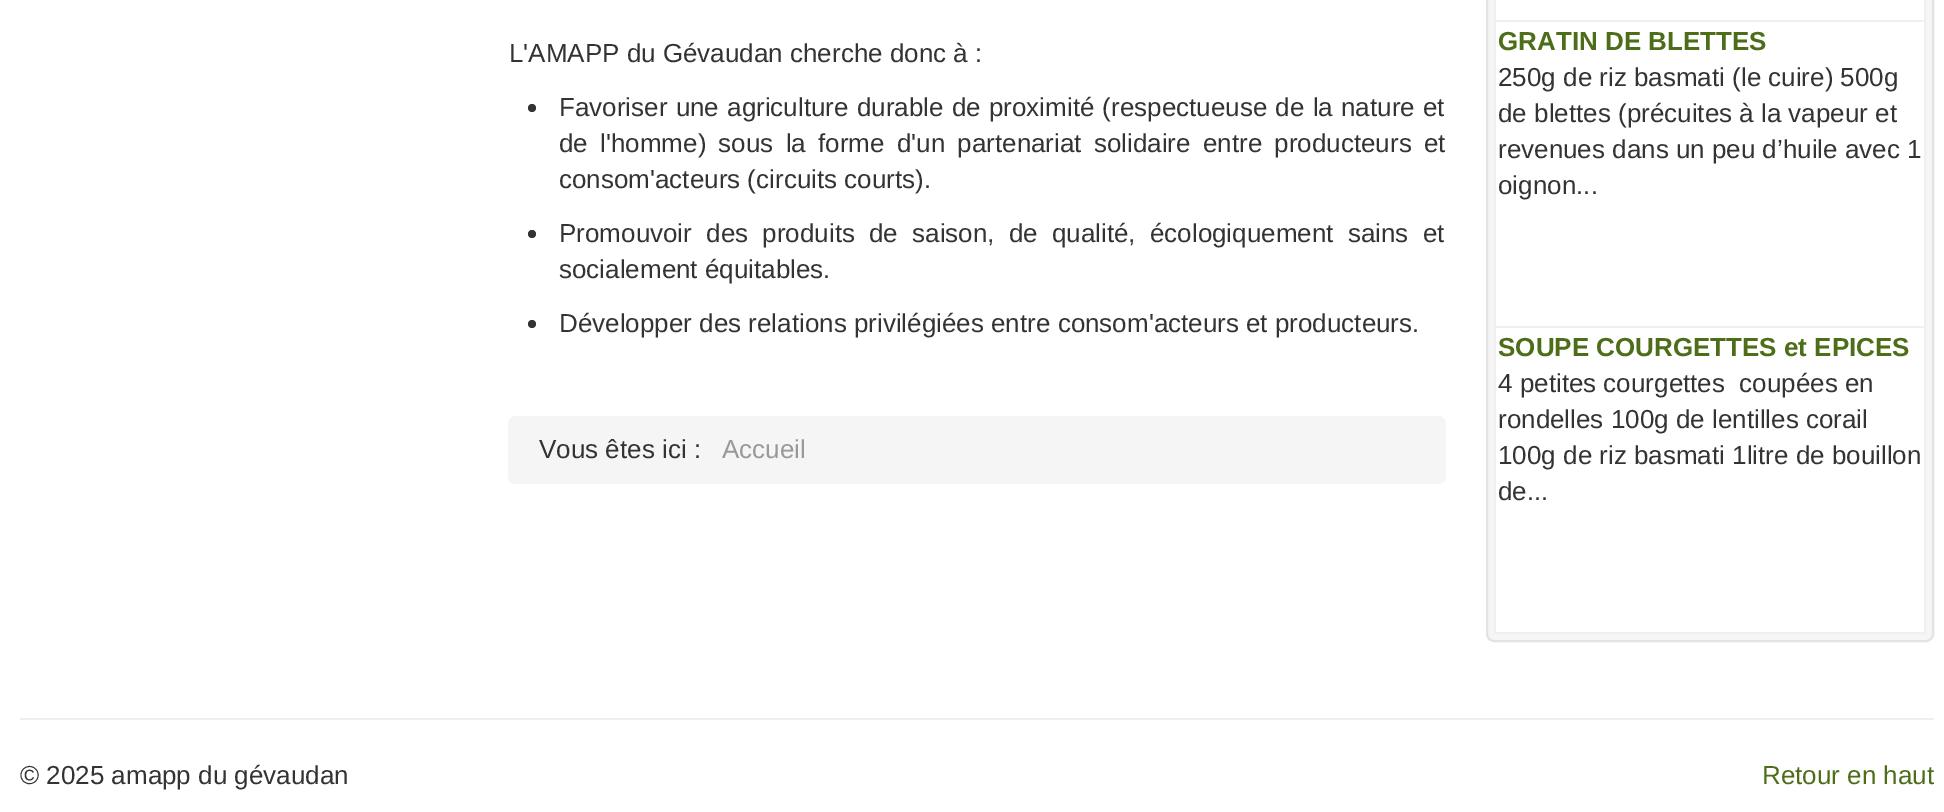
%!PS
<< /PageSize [1944 812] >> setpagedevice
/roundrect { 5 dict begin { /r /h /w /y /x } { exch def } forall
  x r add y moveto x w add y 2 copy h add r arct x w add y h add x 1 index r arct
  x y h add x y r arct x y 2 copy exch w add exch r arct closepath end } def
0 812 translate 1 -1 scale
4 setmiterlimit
1 setgray
0 0 1944 812 rectfill
/LiberationSans-Regular [26 0 0 -26 0 0] selectfont
0.2 setgray
509 62 moveto (L'AMAPP du Gévaudan cherche donc à :) show
newpath 532 108 4 0 360 arc closepath fill
559 116 moveto 1 0 32 (Favoriser une agriculture durable de proximité \(respectueuse de la nature et) widthshow
559 152 moveto 5 0 32 (de l'homme\) sous la forme d'un partenariat solidaire entre producteurs et) widthshow
559 188 moveto (consom'acteurs \(circuits courts\).) show
newpath 532 234 4 0 360 arc closepath fill
559 242 moveto 7 0 32 (Promouvoir des produits de saison, de qualité, écologiquement sains et) widthshow
559 278 moveto (socialement équitables.) show
newpath 532 324 4 0 360 arc closepath fill
559 332 moveto (Développer des relations privilégiées entre consom'acteurs et producteurs.) show
0.961 setgray
508 416 938 68 8 roundrect fill
0.2 setgray
539 458 moveto (Vous êtes ici :) show
0.6 setgray
722 458 moveto (Accueil) show
0.961 setgray
1487 -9 446 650 7 roundrect gsave fill grestore
0.89 setgray
2 setlinewidth
stroke
1 setgray
1496 0 428 20 rectfill
0.937 setgray
1924 0 2 634 rectfill
1494 20 432 2 rectfill
1494 0 2 22 rectfill
1 setgray
1496 22 428 304 rectfill
0.937 setgray
1494 326 432 2 rectfill
1494 22 2 306 rectfill
/LiberationSans-Bold [26 0 0 -26 0 0] selectfont
0.302 0.427 0.098 setrgbcolor
1498 50 moveto (GRATIN DE BLETTES) show
/LiberationSans-Regular [26 0 0 -26 0 0] selectfont
0.2 setgray
1498 86 moveto (250g de riz basmati \(le cuire\) 500g) show
1498 122 moveto (de blettes \(précuites à la vapeur et) show
1498 158 moveto (revenues dans un peu d’huile avec 1) show
1498 194 moveto (oignon...) show
1 setgray
1496 328 428 304 rectfill
0.937 setgray
1494 632 432 2 rectfill
1494 328 2 306 rectfill
/LiberationSans-Bold [26 0 0 -26 0 0] selectfont
0.302 0.427 0.098 setrgbcolor
1498 356 moveto (SOUPE COURGETTES et EPICES) show
/LiberationSans-Regular [26 0 0 -26 0 0] selectfont
0.2 setgray
1498 392 moveto (4 petites courgettes  coupées en) show
1498 428 moveto (rondelles 100g de lentilles corail) show
1498 464 moveto (100g de riz basmati 1litre de bouillon) show
1498 500 moveto (de...) show
0.933 setgray
20 718 1914 2 rectfill
0.2 setgray
20 784 moveto (© 2025 amapp du gévaudan) show
0.302 0.427 0.098 setrgbcolor
1762 784 moveto (Retour en haut) show
showpage
